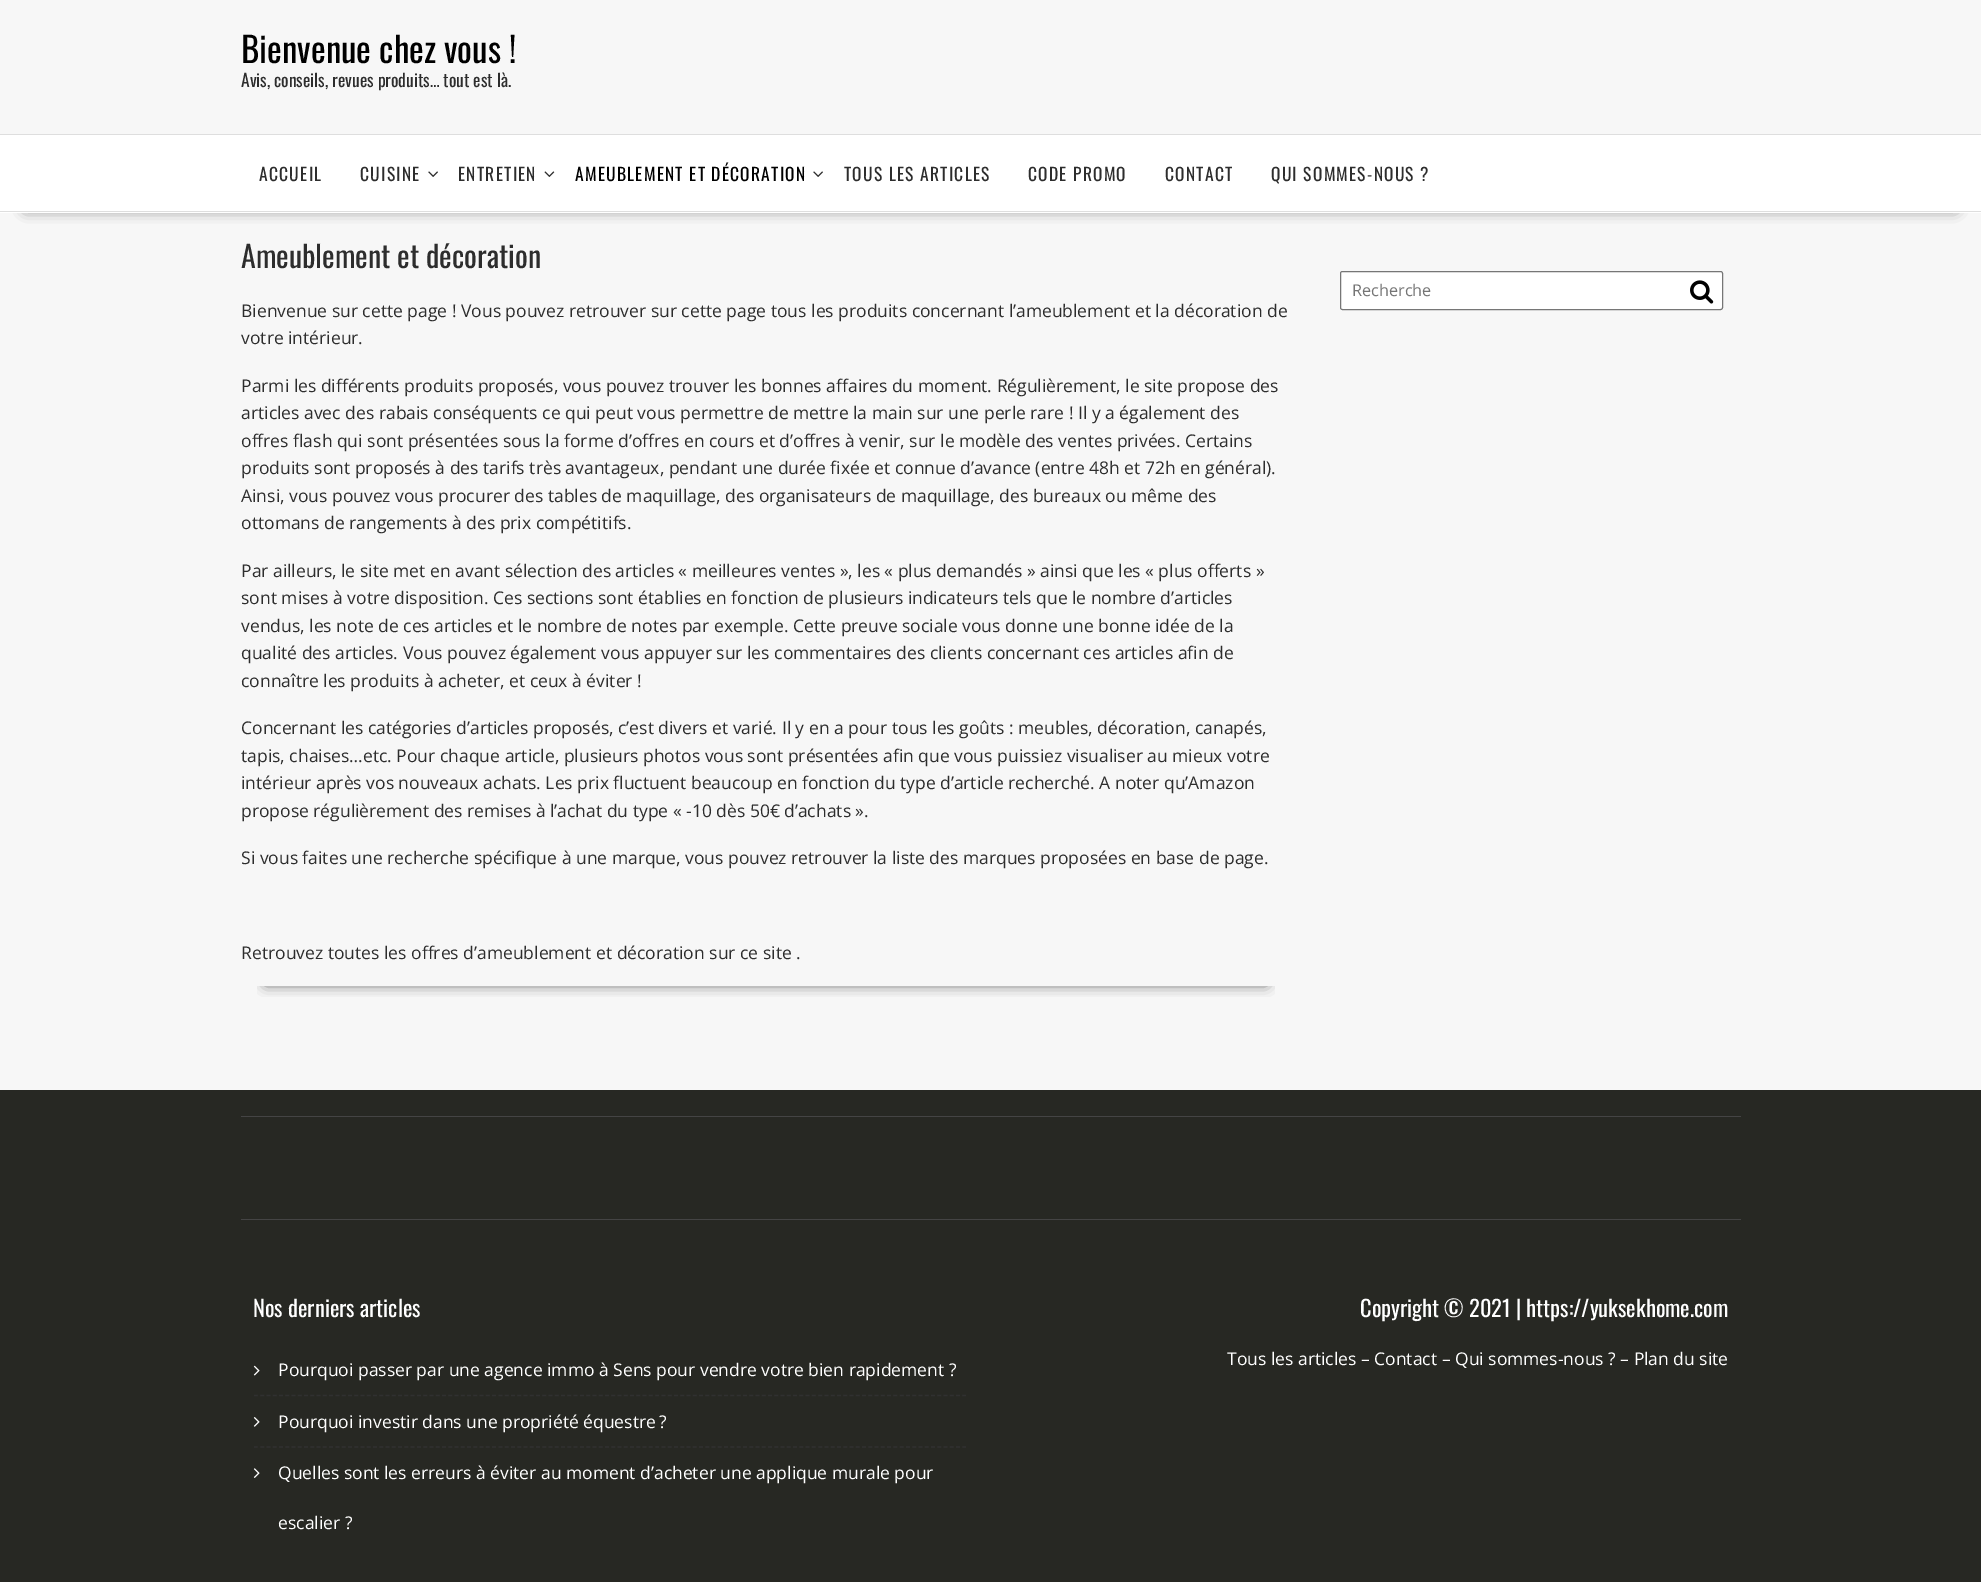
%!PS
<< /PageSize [1981 1582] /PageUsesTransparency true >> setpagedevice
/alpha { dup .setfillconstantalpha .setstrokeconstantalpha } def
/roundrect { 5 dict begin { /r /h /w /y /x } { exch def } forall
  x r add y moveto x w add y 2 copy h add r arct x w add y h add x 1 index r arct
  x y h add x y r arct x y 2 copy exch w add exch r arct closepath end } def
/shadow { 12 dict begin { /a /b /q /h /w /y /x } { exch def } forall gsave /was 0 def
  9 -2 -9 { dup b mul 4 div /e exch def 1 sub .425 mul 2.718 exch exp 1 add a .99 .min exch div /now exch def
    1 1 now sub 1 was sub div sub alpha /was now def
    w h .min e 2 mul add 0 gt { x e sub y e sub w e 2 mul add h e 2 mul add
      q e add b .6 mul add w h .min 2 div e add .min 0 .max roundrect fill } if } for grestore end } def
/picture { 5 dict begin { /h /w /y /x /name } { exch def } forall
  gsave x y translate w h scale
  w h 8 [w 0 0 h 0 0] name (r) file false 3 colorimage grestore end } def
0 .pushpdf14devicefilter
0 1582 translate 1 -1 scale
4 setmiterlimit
0.969 setgray
0 0 1981 1582 rectfill
/Oswald-Regular [35 0 0 -35 0 0] selectfont
0 setgray
241 63 moveto (Bienvenue chez vous !) show
/Oswald-Regular [17.5 0 0 -17.5 0 0] selectfont
0.176 setgray
241 87 moveto (Avis, conseils, revues produits… tout est là.) show
0 setgray
26 181 1929 27 0 7 0.75 shadow
1 setgray
0 135 1981 78 rectfill
0.871 setgray
0 134 1981 1 rectfill
0 211 1981 1 rectfill
0.176 setgray
259 181 moveto 1.25 0 (ACCUEIL) ashow
360 181 moveto 1.25 0 (CUISINE) ashow
(img1.rgb) 428 171 10 6 picture
458 181 moveto 1.25 0 (ENTRETIEN) ashow
(img2.rgb) 544 171 11 6 picture
0 setgray
575 181 moveto 1.25 0 (AMEUBLEMENT ET DÉCORATION) ashow
(img1.rgb) 813 171 10 6 picture
0.176 setgray
844 181 moveto 1.25 0 (TOUS LES ARTICLES) ashow
1028 181 moveto 1.25 0 (CODE PROMO) ashow
1165 181 moveto 1.25 0 (CONTACT) ashow
1271 181 moveto 1.25 0 (QUI SOMMES-NOUS ?) ashow
gsave
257 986 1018 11 rectclip
0 setgray
266 284 1000 699 0 7 0.75 shadow
grestore
/Oswald-Regular [30 0 0 -30 0 0] selectfont
241 268 moveto (Ameublement et décoration) show
/OpenSans-Regular [17.5 0 0 -17.5 0 0] selectfont
241 317 moveto (Bienvenue sur cette page ! Vous pouvez retrouver sur cette page tous les produits concernant l’ameublement et la décoration de) show
241 344 moveto (votre intérieur.) show
241 392 moveto (Parmi les différents produits proposés, vous pouvez trouver les bonnes affaires du moment. Régulièrement, le site propose des) show
241 419 moveto (articles avec des rabais conséquents ce qui peut vous permettre de mettre la main sur une perle rare ! Il y a également des) show
241 447 moveto (offres flash qui sont présentées sous la forme d’offres en cours et d’offres à venir, sur le modèle des ventes privées. Certains) show
241 474 moveto (produits sont proposés à des tarifs très avantageux, pendant une durée fixée et connue d’avance \(entre 48h et 72h en général\).) show
241 502 moveto (Ainsi, vous pouvez vous procurer des tables de maquillage, des organisateurs de maquillage, des bureaux ou même des) show
241 529 moveto (ottomans de rangements à des prix compétitifs.) show
241 577 moveto (Par ailleurs, le site met en avant sélection des articles « meilleures ventes », les « plus demandés » ainsi que les « plus offerts ») show
241 604 moveto (sont mises à votre disposition. Ces sections sont établies en fonction de plusieurs indicateurs tels que le nombre d’articles) show
241 632 moveto (vendus, les note de ces articles et le nombre de notes par exemple. Cette preuve sociale vous donne une bonne idée de la) show
241 659 moveto (qualité des articles. Vous pouvez également vous appuyer sur les commentaires des clients concernant ces articles afin de) show
241 687 moveto (connaître les produits à acheter, et ceux à éviter !) show
241 734 moveto (Concernant les catégories d’articles proposés, c’est divers et varié. Il y en a pour tous les goûts : meubles, décoration, canapés,) show
241 762 moveto (tapis, chaises…etc. Pour chaque article, plusieurs photos vous sont présentées afin que vous puissiez visualiser au mieux votre) show
241 789 moveto (intérieur après vos nouveaux achats. Les prix fluctuent beaucoup en fonction du type d’article recherché. A noter qu’Amazon) show
241 817 moveto (propose régulièrement des remises à l’achat du type « -10 dès 50€ d’achats ».) show
241 864 moveto (Si vous faites une recherche spécifique à une marque, vous pouvez retrouver la liste des marques proposées en base de page.) show
241 959 moveto (Retrouvez toutes les offres d’ameublement et décoration sur ce site .) show
1 setgray
1340.5 271.5 382 38 2 roundrect gsave fill grestore
0.463 setgray
stroke
/OpenSans-Regular [16.25 0 0 -16.25 0 0] selectfont
0.459 setgray
1352 296 moveto (Recherche) show
(img3.rgb) 1690 280 24 24 picture
0.153 0.157 0.137 setrgbcolor
0 1090 1981 492 rectfill
0.267 setgray
241 1116 1500 1 rectfill
241 1219 1500 1 rectfill
/Oswald-Regular [22.5 0 0 -22.5 0 0] selectfont
1 setgray
253 1317 moveto (Nos derniers articles) show
(img4.rgb) 253 1365 7 11 picture
/OpenSans-Regular [17.5 0 0 -17.5 0 0] selectfont
278 1376 moveto (Pourquoi passer par une agence immo à Sens pour vendre votre bien rapidement ?) show
0.188 setgray
1.2 setlinewidth
[3.75 2.52] 0 setdash
newpath 254 1395.5 moveto 966 1395.5 lineto stroke
(img5.rgb) 253 1417 7 10 picture
1 setgray
278 1428 moveto (Pourquoi investir dans une propriété équestre ?) show
0.188 setgray
newpath 254 1447 moveto 966 1447 lineto stroke
(img6.rgb) 253 1468 7 10 picture
1 setgray
278 1479 moveto (Quelles sont les erreurs à éviter au moment d’acheter une applique murale pour) show
278 1529 moveto (escalier ?) show
/Oswald-Regular [22.5 0 0 -22.5 0 0] selectfont
1360 1317 moveto (Copyright © 2021 | https://yuksekhome.com) show
/OpenSans-Regular [17.5 0 0 -17.5 0 0] selectfont
1227 1365 moveto (Tous les articles – Contact – Qui sommes-nous ? – Plan du site) show
.poppdf14devicefilter showpage
